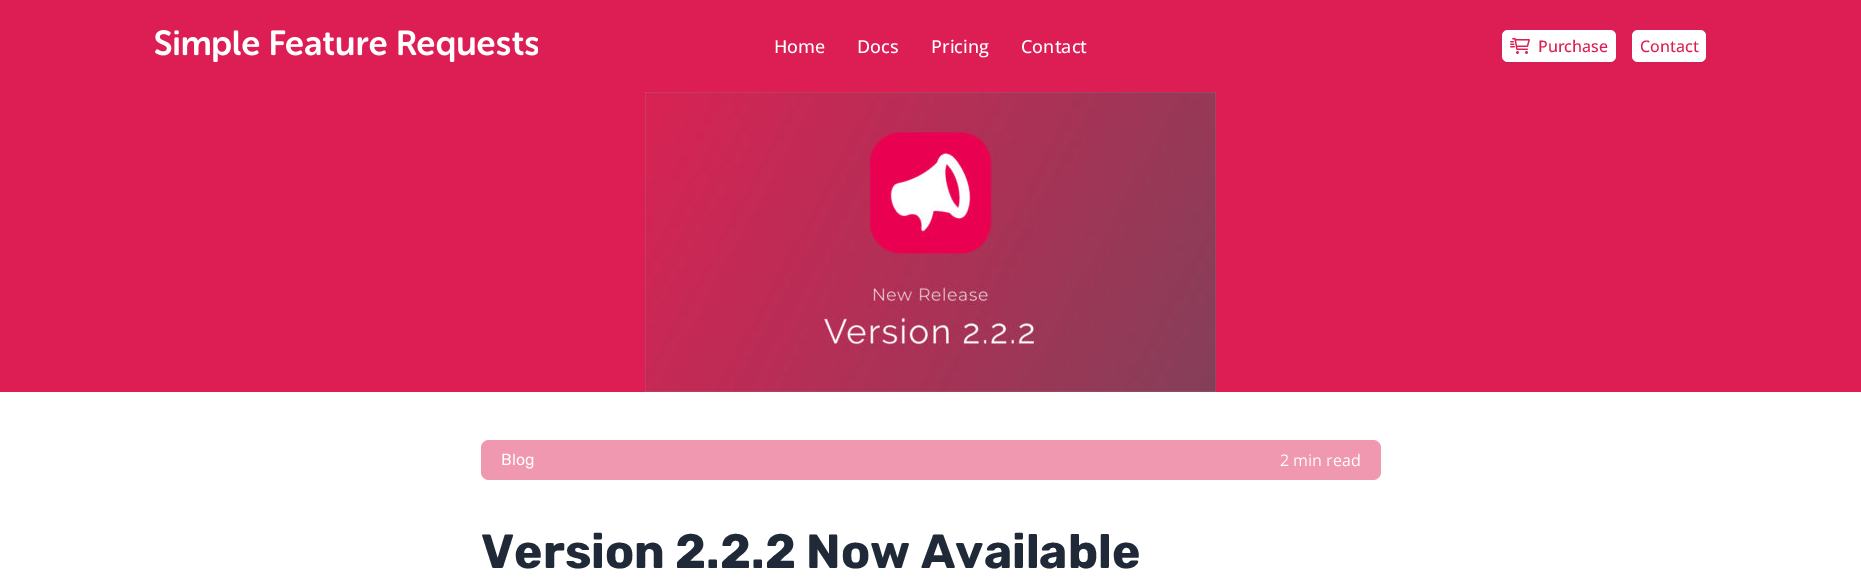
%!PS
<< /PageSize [1861 584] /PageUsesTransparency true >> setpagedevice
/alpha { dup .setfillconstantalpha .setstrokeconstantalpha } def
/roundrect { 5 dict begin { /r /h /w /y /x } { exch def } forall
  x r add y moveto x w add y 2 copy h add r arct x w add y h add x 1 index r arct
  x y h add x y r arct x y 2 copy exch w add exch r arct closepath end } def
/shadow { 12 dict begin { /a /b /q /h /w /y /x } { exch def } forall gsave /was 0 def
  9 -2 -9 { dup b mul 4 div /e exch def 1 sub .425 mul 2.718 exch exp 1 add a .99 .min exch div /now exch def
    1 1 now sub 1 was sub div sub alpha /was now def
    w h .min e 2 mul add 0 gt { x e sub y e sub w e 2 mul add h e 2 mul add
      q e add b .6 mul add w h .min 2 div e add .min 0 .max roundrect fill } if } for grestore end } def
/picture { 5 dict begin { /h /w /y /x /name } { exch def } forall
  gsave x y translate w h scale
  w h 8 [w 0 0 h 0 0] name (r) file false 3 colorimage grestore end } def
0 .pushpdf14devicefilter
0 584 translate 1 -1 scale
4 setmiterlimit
1 setgray
0 0 1861 584 rectfill
0.863 0.118 0.329 setrgbcolor
0 0 1861 392 rectfill
(img1.rgb) 155 30 383 32 picture
/OpenSans-Medium [18 0 0 -18 0 0] selectfont
1 setgray
774 53 moveto (Home) show
857 53 moveto (Docs) show
931 53 moveto (Pricing) show
1021 53 moveto (Contact) show
0 setgray
1502 31 114 32 6 1 0.05 shadow
1 setgray
1502 30 114 32 6 roundrect fill
(img2.rgb) 1510 38 20 16 picture
/OpenSans-Medium [16 0 0 -16 0 0] selectfont
0.863 0.118 0.329 setrgbcolor
1538 52 moveto (Purchase) show
0 setgray
1632 31 74 32 6 1 0.05 shadow
1 setgray
1632 30 74 32 6 roundrect fill
0.863 0.118 0.329 setrgbcolor
1640 52 moveto (Contact) show
(img3.rgb) 645 92 571 300 picture
0.945 0.596 0.694 setrgbcolor
481 440 900 40 8 roundrect fill
/Rubik-Light [16 0 0 -16 0 0] selectfont
1 setgray
501 465 moveto (Blog) show
/OpenSans-Regular [16 0 0 -16 0 0] selectfont
1280 466 moveto (2 min read) show
/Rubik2-Light [48 0 0 -48 0 0] selectfont
0.122 0.161 0.216 setrgbcolor
481 568 moveto (Version 2.2.2 Now Available) show
.poppdf14devicefilter showpage
